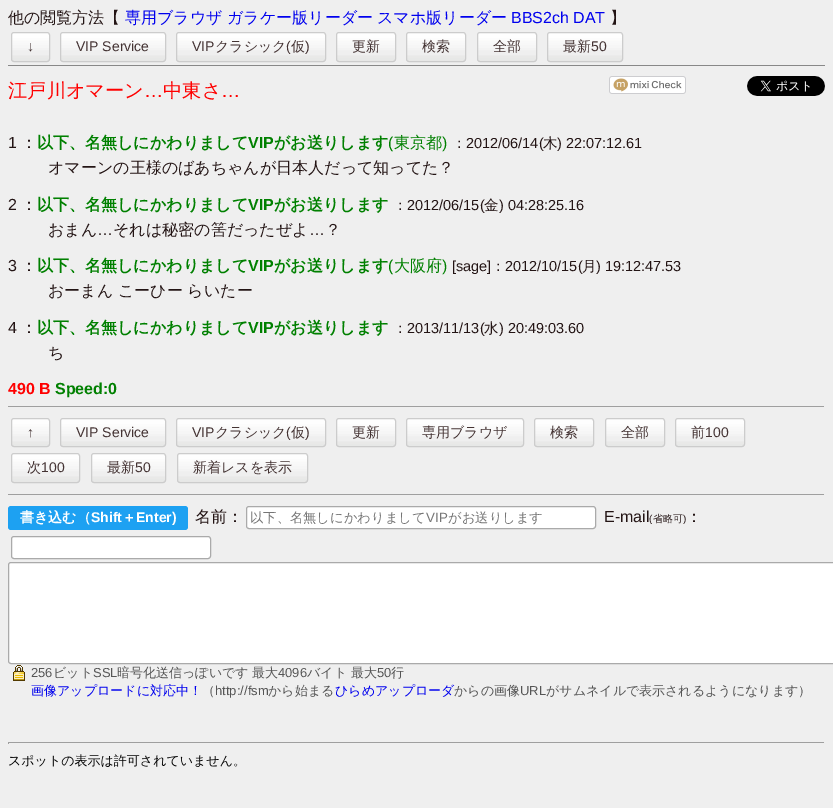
%!PS
<< /PageSize [833 808] >> setpagedevice
/roundrect { 5 dict begin { /r /h /w /y /x } { exch def } forall
  x r add y moveto x w add y 2 copy h add r arct x w add y h add x 1 index r arct
  x y h add x y r arct x y 2 copy exch w add exch r arct closepath end } def
/picture { 5 dict begin { /h /w /y /x /name } { exch def } forall
  gsave x y translate w h scale
  w h 8 [w 0 0 h 0 0] name (r) file false 3 colorimage grestore end } def
0 808 translate 1 -1 scale
4 setmiterlimit
0.937 setgray
0 0 833 808 rectfill
0.533 setgray
8 65 817 1 rectfill
/WenQuanYiZenHei-Medium [16 0 0 -16 0 0] selectfont
0.137 0.078 0.078 setrgbcolor
8 23 moveto (他の閲覧方法【) show
0 0 0.933 setrgbcolor
125 23 moveto (専用ブラウザ) show
227 23 moveto (ガラケー版リーダー) show
377 23 moveto (スマホ版リーダー) show
/LiberationSans-Regular [16 0 0 -16 0 0] selectfont
511 23 moveto (BBS2ch DAT) show
/WenQuanYiZenHei-Medium [16 0 0 -16 0 0] selectfont
0.137 0.078 0.078 setrgbcolor
610 23 moveto (】) show
(img1.rgb) 11 33 39 29 picture
0.8 setgray
11.5 32.5 38 29 2.5 roundrect stroke
/LiberationSans-Regular [14 0 0 -14 0 0] selectfont
0.267 0.2 0.2 setrgbcolor
27 51 moveto (↓) show
(img2.rgb) 60 33 106 29 picture
0.8 setgray
60.5 32.5 105 29 2.5 roundrect stroke
0.267 0.2 0.2 setrgbcolor
76 51 moveto (VIP Service) show
(img3.rgb) 176 33 150 29 picture
0.8 setgray
176.5 32.5 149 29 2.5 roundrect stroke
0.267 0.2 0.2 setrgbcolor
192 51 moveto (VIP) show
/WenQuanYiZenHei-Medium [14 0 0 -14 0 0] selectfont
215 51 moveto (クラシック) show
/LiberationSans-Regular [14 0 0 -14 0 0] selectfont
286 51 moveto (\() show
/WenQuanYiZenHei-Medium [14 0 0 -14 0 0] selectfont
291 51 moveto (仮) show
/LiberationSans-Regular [14 0 0 -14 0 0] selectfont
305 51 moveto (\)) show
(img4.rgb) 336 33 60 29 picture
0.8 setgray
336.5 32.5 59 29 2.5 roundrect stroke
/WenQuanYiZenHei-Medium [14 0 0 -14 0 0] selectfont
0.267 0.2 0.2 setrgbcolor
352 51 moveto (更新) show
(img4.rgb) 406 33 60 29 picture
0.8 setgray
406.5 32.5 59 29 2.5 roundrect stroke
0.267 0.2 0.2 setrgbcolor
422 51 moveto (検索) show
(img4.rgb) 477 33 60 29 picture
0.8 setgray
477.5 32.5 59 29 2.5 roundrect stroke
0.267 0.2 0.2 setrgbcolor
493 51 moveto (全部) show
(img5.rgb) 547 33 76 29 picture
0.8 setgray
547.5 32.5 75 29 2.5 roundrect stroke
0.267 0.2 0.2 setrgbcolor
563 51 moveto (最新) show
/LiberationSans-Regular [14 0 0 -14 0 0] selectfont
591 51 moveto (50) show
/WenQuanYiZenHei-Medium [19.25 0 0 -19.25 0 0] selectfont
1 0 0 setrgbcolor
8 97 moveto (江戸川オマーン) show
/LiberationSans-Regular [19.25 0 0 -19.25 0 0] selectfont
144 97 moveto (…) show
/WenQuanYiZenHei-Medium [19.25 0 0 -19.25 0 0] selectfont
163 97 moveto (中東さ) show
/LiberationSans-Regular [19.25 0 0 -19.25 0 0] selectfont
221 97 moveto (…) show
(img6.rgb) 609 76 77 18 picture
(img7.rgb) 747 76 78 20 picture
/LiberationSans-Regular [16 0 0 -16 0 0] selectfont
0.137 0.078 0.078 setrgbcolor
8 148 moveto (1) show
/WenQuanYiZenHei-Medium [16 0 0 -16 0 0] selectfont
21 148 moveto (：) show
/WenQuanYiZenHei-Bold [16 0 0 -16 0 0] selectfont
0 0.502 0 setrgbcolor
37 148 moveto (以下、名無しにかわりまして) show
/LiberationSans-Bold [16 0 0 -16 0 0] selectfont
248 148 moveto (VIP) show
/WenQuanYiZenHei-Bold [16 0 0 -16 0 0] selectfont
274 148 moveto (がお送りします) show
/LiberationSans-Regular [16 0 0 -16 0 0] selectfont
388 148 moveto (\() show
/WenQuanYiZenHei-Medium [16 0 0 -16 0 0] selectfont
394 148 moveto (東京都) show
/LiberationSans-Regular [16 0 0 -16 0 0] selectfont
442 148 moveto (\)) show
/WenQuanYiZenHei-Medium [14.5 0 0 -14.5 0 0] selectfont
0.137 0.078 0.078 setrgbcolor
452 148 moveto (：) show
/LiberationSans-Regular [14.5 0 0 -14.5 0 0] selectfont
466 148 moveto (2012/06/14\() show
/WenQuanYiZenHei-Medium [14.5 0 0 -14.5 0 0] selectfont
543 148 moveto (木) show
/LiberationSans-Regular [14.5 0 0 -14.5 0 0] selectfont
557 148 moveto (\) 22:07:12.61) show
/WenQuanYiZenHei-Medium [16 0 0 -16 0 0] selectfont
48 173 moveto (オマーンの王様のばあちゃんが日本人だって知ってた？) show
/LiberationSans-Regular [16 0 0 -16 0 0] selectfont
8 210 moveto (2) show
/WenQuanYiZenHei-Medium [16 0 0 -16 0 0] selectfont
21 210 moveto (：) show
/WenQuanYiZenHei-Bold [16 0 0 -16 0 0] selectfont
0 0.502 0 setrgbcolor
37 210 moveto (以下、名無しにかわりまして) show
/LiberationSans-Bold [16 0 0 -16 0 0] selectfont
248 210 moveto (VIP) show
/WenQuanYiZenHei-Bold [16 0 0 -16 0 0] selectfont
274 210 moveto (がお送りします) show
/WenQuanYiZenHei-Medium [14.5 0 0 -14.5 0 0] selectfont
0.137 0.078 0.078 setrgbcolor
393 210 moveto (：) show
/LiberationSans-Regular [14.5 0 0 -14.5 0 0] selectfont
407 210 moveto (2012/06/15\() show
/WenQuanYiZenHei-Medium [14.5 0 0 -14.5 0 0] selectfont
484 210 moveto (金) show
/LiberationSans-Regular [14.5 0 0 -14.5 0 0] selectfont
499 210 moveto (\) 04:28:25.16) show
/WenQuanYiZenHei-Medium [16 0 0 -16 0 0] selectfont
48 235 moveto (おまん) show
/LiberationSans-Regular [16 0 0 -16 0 0] selectfont
97 235 moveto (…) show
/WenQuanYiZenHei-Medium [16 0 0 -16 0 0] selectfont
113 235 moveto (それは秘密の筈だったぜよ) show
/LiberationSans-Regular [16 0 0 -16 0 0] selectfont
309 235 moveto (…) show
/WenQuanYiZenHei-Medium [16 0 0 -16 0 0] selectfont
325 235 moveto (？) show
/LiberationSans-Regular [16 0 0 -16 0 0] selectfont
8 271 moveto (3) show
/WenQuanYiZenHei-Medium [16 0 0 -16 0 0] selectfont
21 271 moveto (：) show
/WenQuanYiZenHei-Bold [16 0 0 -16 0 0] selectfont
0 0.502 0 setrgbcolor
37 271 moveto (以下、名無しにかわりまして) show
/LiberationSans-Bold [16 0 0 -16 0 0] selectfont
248 271 moveto (VIP) show
/WenQuanYiZenHei-Bold [16 0 0 -16 0 0] selectfont
274 271 moveto (がお送りします) show
/LiberationSans-Regular [16 0 0 -16 0 0] selectfont
388 271 moveto (\() show
/WenQuanYiZenHei-Medium [16 0 0 -16 0 0] selectfont
394 271 moveto (大阪府) show
/LiberationSans-Regular [16 0 0 -16 0 0] selectfont
442 271 moveto (\)) show
/LiberationSans-Regular [14.5 0 0 -14.5 0 0] selectfont
0.137 0.078 0.078 setrgbcolor
452 271 moveto ([sage]) show
/WenQuanYiZenHei-Medium [14.5 0 0 -14.5 0 0] selectfont
491 271 moveto (：) show
/LiberationSans-Regular [14.5 0 0 -14.5 0 0] selectfont
505 271 moveto (2012/10/15\() show
/WenQuanYiZenHei-Medium [14.5 0 0 -14.5 0 0] selectfont
582 271 moveto (月) show
/LiberationSans-Regular [14.5 0 0 -14.5 0 0] selectfont
596 271 moveto (\) 19:12:47.53) show
/WenQuanYiZenHei-Medium [16 0 0 -16 0 0] selectfont
48 296 moveto (おーまん こーひー らいたー) show
/LiberationSans-Regular [16 0 0 -16 0 0] selectfont
8 333 moveto (4) show
/WenQuanYiZenHei-Medium [16 0 0 -16 0 0] selectfont
21 333 moveto (：) show
/WenQuanYiZenHei-Bold [16 0 0 -16 0 0] selectfont
0 0.502 0 setrgbcolor
37 333 moveto (以下、名無しにかわりまして) show
/LiberationSans-Bold [16 0 0 -16 0 0] selectfont
248 333 moveto (VIP) show
/WenQuanYiZenHei-Bold [16 0 0 -16 0 0] selectfont
274 333 moveto (がお送りします) show
/WenQuanYiZenHei-Medium [14.5 0 0 -14.5 0 0] selectfont
0.137 0.078 0.078 setrgbcolor
393 333 moveto (：) show
/LiberationSans-Regular [14.5 0 0 -14.5 0 0] selectfont
407 333 moveto (2013/11/13\() show
/WenQuanYiZenHei-Medium [14.5 0 0 -14.5 0 0] selectfont
484 333 moveto (水) show
/LiberationSans-Regular [14.5 0 0 -14.5 0 0] selectfont
499 333 moveto (\) 20:49:03.60) show
/WenQuanYiZenHei-Medium [16 0 0 -16 0 0] selectfont
48 358 moveto (ち) show
/LiberationSans-Bold [16 0 0 -16 0 0] selectfont
1 0 0 setrgbcolor
8 394 moveto (490 B) show
0 0.502 0 setrgbcolor
55 394 moveto (Speed:0) show
0.624 setgray
8 406 817 1 rectfill
0.933 setgray
824 406 1 1 rectfill
(img8.rgb) 11 419 39 28 picture
0.8 setgray
11.5 418.5 38 28 2.5 roundrect stroke
/LiberationSans-Regular [14 0 0 -14 0 0] selectfont
0.267 0.2 0.2 setrgbcolor
27 437 moveto (↑) show
(img9.rgb) 60 419 106 28 picture
0.8 setgray
60.5 418.5 105 28 2.5 roundrect stroke
0.267 0.2 0.2 setrgbcolor
76 437 moveto (VIP Service) show
(img10.rgb) 176 419 150 28 picture
0.8 setgray
176.5 418.5 149 28 2.5 roundrect stroke
0.267 0.2 0.2 setrgbcolor
192 437 moveto (VIP) show
/WenQuanYiZenHei-Medium [14 0 0 -14 0 0] selectfont
215 437 moveto (クラシック) show
/LiberationSans-Regular [14 0 0 -14 0 0] selectfont
286 437 moveto (\() show
/WenQuanYiZenHei-Medium [14 0 0 -14 0 0] selectfont
291 437 moveto (仮) show
/LiberationSans-Regular [14 0 0 -14 0 0] selectfont
305 437 moveto (\)) show
(img11.rgb) 336 419 60 28 picture
0.8 setgray
336.5 418.5 59 28 2.5 roundrect stroke
/WenQuanYiZenHei-Medium [14 0 0 -14 0 0] selectfont
0.267 0.2 0.2 setrgbcolor
352 437 moveto (更新) show
(img12.rgb) 406 419 118 28 picture
0.8 setgray
406.5 418.5 117 28 2.5 roundrect stroke
0.267 0.2 0.2 setrgbcolor
422 437 moveto (専用ブラウザ) show
(img11.rgb) 534 419 60 28 picture
0.8 setgray
534.5 418.5 59 28 2.5 roundrect stroke
0.267 0.2 0.2 setrgbcolor
550 437 moveto (検索) show
(img11.rgb) 605 419 60 28 picture
0.8 setgray
605.5 418.5 59 28 2.5 roundrect stroke
0.267 0.2 0.2 setrgbcolor
621 437 moveto (全部) show
(img13.rgb) 675 419 70 28 picture
0.8 setgray
675.5 418.5 69 28 2.5 roundrect stroke
0.267 0.2 0.2 setrgbcolor
691 437 moveto (前) show
/LiberationSans-Regular [14 0 0 -14 0 0] selectfont
705 437 moveto (100) show
(img14.rgb) 11 454 69 29 picture
0.8 setgray
11.5 453.5 68 29 2.5 roundrect stroke
/WenQuanYiZenHei-Medium [14 0 0 -14 0 0] selectfont
0.267 0.2 0.2 setrgbcolor
27 472 moveto (次) show
/LiberationSans-Regular [14 0 0 -14 0 0] selectfont
41 472 moveto (100) show
(img15.rgb) 91 454 75 29 picture
0.8 setgray
91.5 453.5 74 29 2.5 roundrect stroke
/WenQuanYiZenHei-Medium [14 0 0 -14 0 0] selectfont
0.267 0.2 0.2 setrgbcolor
107 472 moveto (最新) show
/LiberationSans-Regular [14 0 0 -14 0 0] selectfont
135 472 moveto (50) show
(img16.rgb) 177 454 131 29 picture
0.8 setgray
177.5 453.5 130 29 2.5 roundrect stroke
/WenQuanYiZenHei-Medium [14 0 0 -14 0 0] selectfont
0.267 0.2 0.2 setrgbcolor
193 472 moveto (新着レスを表示) show
0.624 setgray
8 494 817 1 rectfill
0.933 setgray
824 494 1 1 rectfill
0.114 0.631 0.949 setrgbcolor
8 506 180 24 3 roundrect fill
/WenQuanYiZenHei-Bold [14 0 0 -14 0 0] selectfont
1 setgray
20 522 moveto (書き込む（) show
/LiberationSans-Bold [14 0 0 -14 0 0] selectfont
91 522 moveto (Shift) show
/WenQuanYiZenHei-Bold [14 0 0 -14 0 0] selectfont
122 522 moveto (＋) show
/LiberationSans-Bold [14 0 0 -14 0 0] selectfont
136 522 moveto (Enter\)) show
/WenQuanYiZenHei-Medium [16 0 0 -16 0 0] selectfont
0.137 0.078 0.078 setrgbcolor
195 522 moveto (名前：) show
1 setgray
246.5 506.5 349 22 2.5 roundrect gsave fill grestore
0.667 setgray
stroke
/WenQuanYiZenHei-Medium [13.3 0 0 -13.3 0 0] selectfont
0.459 setgray
250 522 moveto (以下、名無しにかわりまして) show
/LiberationSans-Regular [13.3 0 0 -13.3 0 0] selectfont
426 522 moveto (VIP) show
/WenQuanYiZenHei-Medium [13.3 0 0 -13.3 0 0] selectfont
448 522 moveto (がお送りします) show
/LiberationSans-Regular [16 0 0 -16 0 0] selectfont
0.137 0.078 0.078 setrgbcolor
604 522 moveto (E-mail) show
/LiberationSans-Regular [10 0 0 -10 0 0] selectfont
649 522 moveto (\() show
/WenQuanYiZenHei-Medium [10 0 0 -10 0 0] selectfont
653 522 moveto (省略可) show
/LiberationSans-Regular [10 0 0 -10 0 0] selectfont
683 522 moveto (\)) show
/WenQuanYiZenHei-Medium [16 0 0 -16 0 0] selectfont
686 522 moveto (：) show
1 setgray
11.5 536.5 199 22 2.5 roundrect gsave fill grestore
0.667 setgray
stroke
1 setgray
8.5 562.5 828 101 2.5 roundrect gsave fill grestore
0.667 setgray
stroke
(img17.rgb) 13 665 12 16 picture
/LiberationSans-Regular [13 0 0 -13 0 0] selectfont
0.333 setgray
31 677 moveto (256) show
/WenQuanYiZenHei-Medium [13 0 0 -13 0 0] selectfont
53 677 moveto (ビット) show
/LiberationSans-Regular [13 0 0 -13 0 0] selectfont
93 677 moveto (SSL) show
/WenQuanYiZenHei-Medium [13 0 0 -13 0 0] selectfont
117 677 moveto (暗号化送信っぽいです 最大) show
/LiberationSans-Regular [13 0 0 -13 0 0] selectfont
278 677 moveto (4096) show
/WenQuanYiZenHei-Medium [13 0 0 -13 0 0] selectfont
307 677 moveto (バイト 最大) show
/LiberationSans-Regular [13 0 0 -13 0 0] selectfont
377 677 moveto (50) show
/WenQuanYiZenHei-Medium [13 0 0 -13 0 0] selectfont
391 677 moveto (行) show
0 0 0.933 setrgbcolor
31 695 moveto (画像アップロードに対応中！) show
0.333 setgray
202 695 moveto (（) show
/LiberationSans-Regular [13 0 0 -13 0 0] selectfont
215 695 moveto (http://fsm) show
/WenQuanYiZenHei-Medium [13 0 0 -13 0 0] selectfont
268 695 moveto (から始まる) show
0 0 0.933 setrgbcolor
335 695 moveto (ひらめアップローダ) show
0.333 setgray
454 695 moveto (からの画像) show
/LiberationSans-Regular [13 0 0 -13 0 0] selectfont
520 695 moveto (URL) show
/WenQuanYiZenHei-Medium [13 0 0 -13 0 0] selectfont
546 695 moveto (がサムネイルで表示されるようになります）) show
0.624 setgray
8 742 817 1 rectfill
0.933 setgray
824 742 1 2 rectfill
0.624 setgray
8 742 1 2 rectfill
(img18.rgb) 9 754 229 13 picture
showpage
